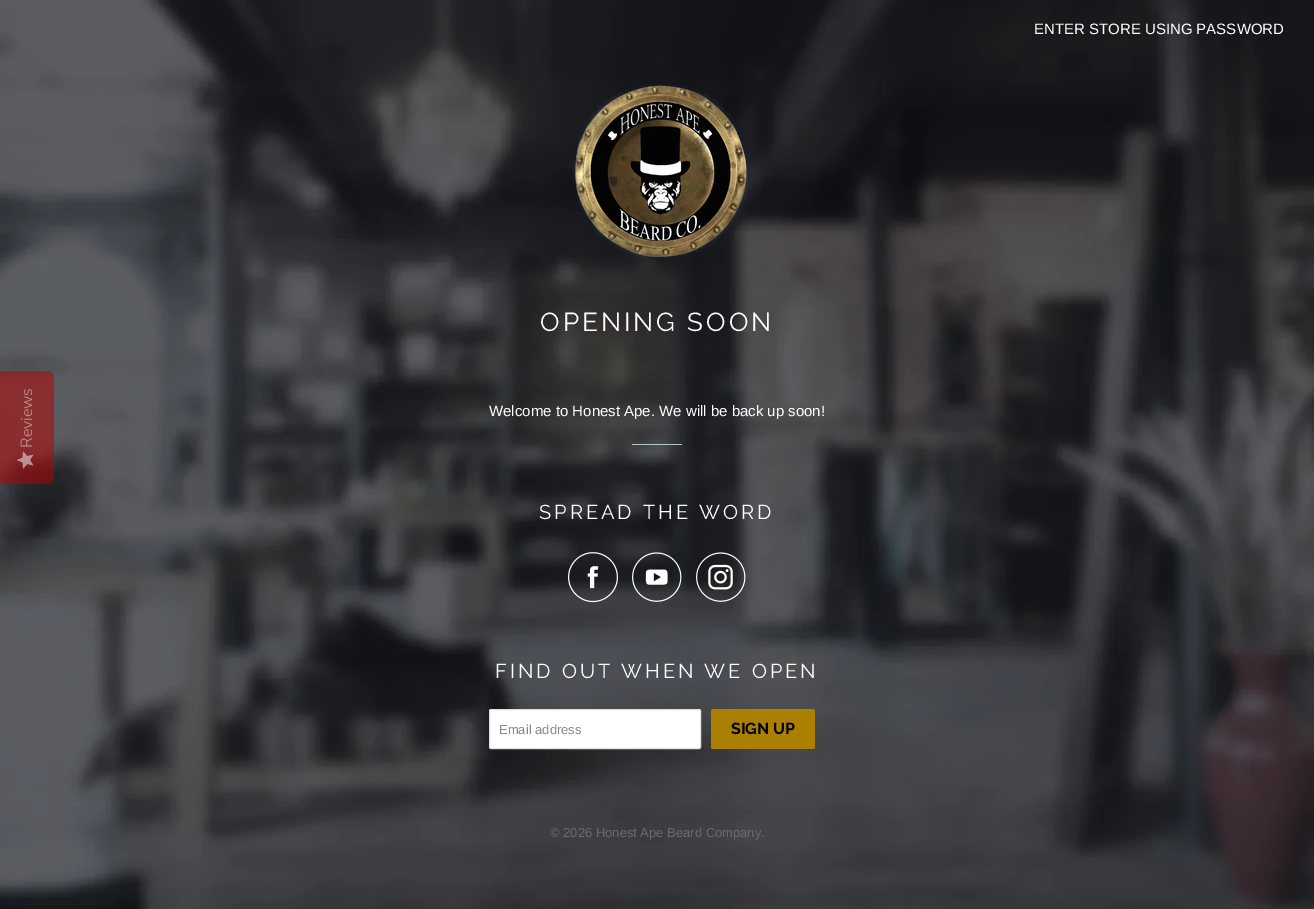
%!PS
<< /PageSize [1314 909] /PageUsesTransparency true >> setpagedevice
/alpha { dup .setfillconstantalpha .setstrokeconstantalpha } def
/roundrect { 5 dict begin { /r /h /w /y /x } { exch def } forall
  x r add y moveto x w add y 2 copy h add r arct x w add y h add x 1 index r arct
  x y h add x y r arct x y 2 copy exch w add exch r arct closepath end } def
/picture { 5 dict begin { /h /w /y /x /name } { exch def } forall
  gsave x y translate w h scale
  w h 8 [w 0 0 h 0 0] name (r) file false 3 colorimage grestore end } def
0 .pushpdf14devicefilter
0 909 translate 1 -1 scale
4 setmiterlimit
1 setgray
0 0 1314 909 rectfill
(img1.rgb) 0 0 1314 909 picture
0.5 alpha
0.722 0 0 setrgbcolor
newpath 0 484 moveto 0 371 lineto 48 371 lineto 51 371 54 374 54 377 curveto 54 478 lineto 54 481 51 484 48 484 curveto closepath fill
/NunitoSans-Light [16 0 0 -16 0 0] selectfont
1 alpha
0.769 0.588 0.592 setrgbcolor
gsave 32 448 translate -90 rotate 0 0 moveto (Reviews) show grestore
(img2.rgb) 16 451 18 18 picture
/LiberationSans-Regular [15 0 0 -15 0 0] selectfont
1 setgray
1034 34 moveto (ENTER STORE USING PASSWORD) show
(img3.rgb) 572 85 176 173 picture
/Raleway-Regular [26 0 0 -26 0 0] selectfont
540 331 moveto 3 0 (OPENING SOON) ashow
/LiberationSans-Regular [15 0 0 -15 0 0] selectfont
489 416 moveto (Welcome to Honest Ape. We will be back up soon!) show
0.722 0.776 0.776 setrgbcolor
632 444 50 1 rectfill
/Raleway-Regular [20 0 0 -20 0 0] selectfont
1 setgray
539 519 moveto 3 0 (SPREAD THE WORD) ashow
(img4.rgb) 568 552 50 51 picture
(img5.rgb) 632 552 50 50 picture
(img6.rgb) 696 552 50 50 picture
495 678 moveto 3 0 (FIND OUT WHEN WE OPEN) ashow
489.5 709.5 211 39 1.5 roundrect gsave fill grestore
0.875 setgray
stroke
/LiberationSans-Regular [13 0 0 -13 0 0] selectfont
0.533 setgray
499 734 moveto (Email address) show
0.671 0.498 0 setrgbcolor
711 709 104 40 2 roundrect fill
/Raleway-Bold [16 0 0 -16 0 0] selectfont
0 setgray
731 734 moveto (SIGN UP) show
/LiberationSans-Regular [13 0 0 -13 0 0] selectfont
0.42 setgray
550 837 moveto (© 2026 Honest Ape Beard Company.) show
.poppdf14devicefilter showpage
